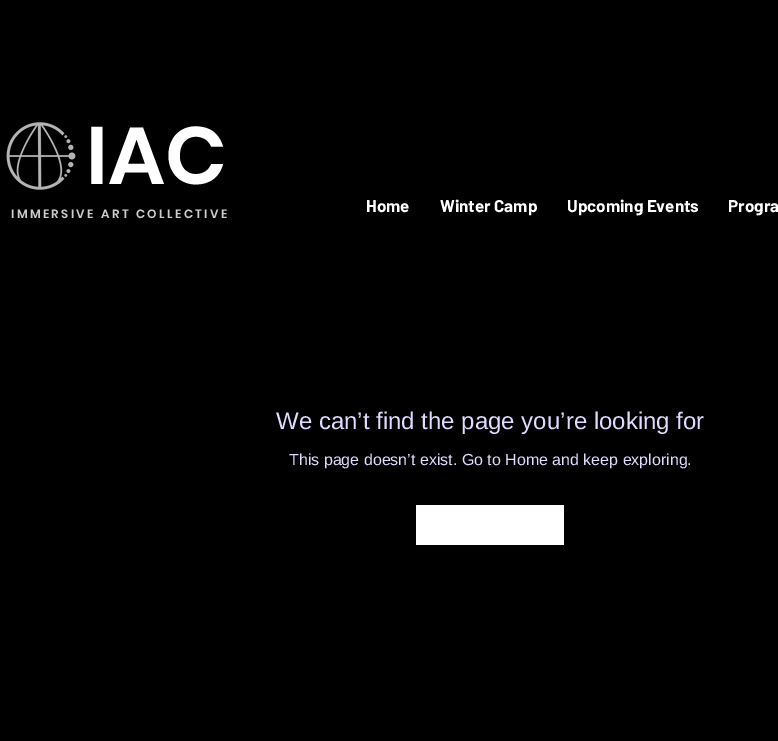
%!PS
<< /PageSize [778 741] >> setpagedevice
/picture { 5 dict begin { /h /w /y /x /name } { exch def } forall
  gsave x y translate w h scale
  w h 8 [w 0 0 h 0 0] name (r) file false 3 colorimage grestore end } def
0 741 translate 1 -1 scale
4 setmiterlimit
0 setgray
0 0 778 741 rectfill
(img1.rgb) 6 122 70 68 picture
/Poppins-SemiBold [81 0 0 -81 0 0] selectfont
1 setgray
86 184 moveto (IAC) show
/Poppins-SemiBold [12 0 0 -12 0 0] selectfont
0.8 setgray
11 218 moveto 2.4 0 (IMMERSIVE ART COLLECTIVE) ashow
/Barlow-Bold [17 0 0 -17 0 0] selectfont
1 setgray
366 212 moveto (Home) show
440 212 moveto (Winter Camp) show
567 212 moveto (Upcoming Events) show
728 212 moveto (Progra) show
/LiberationSans-Regular [24 0 0 -24 0 0] selectfont
0.886 0.855 1 setrgbcolor
276 429 moveto (We can’t find the page you’re looking for) show
/LiberationSans-Regular [16 0 0 -16 0 0] selectfont
289 465 moveto (This page doesn’t exist. Go to Home and keep exploring.) show
1 setgray
416 505 148 40 rectfill
showpage
